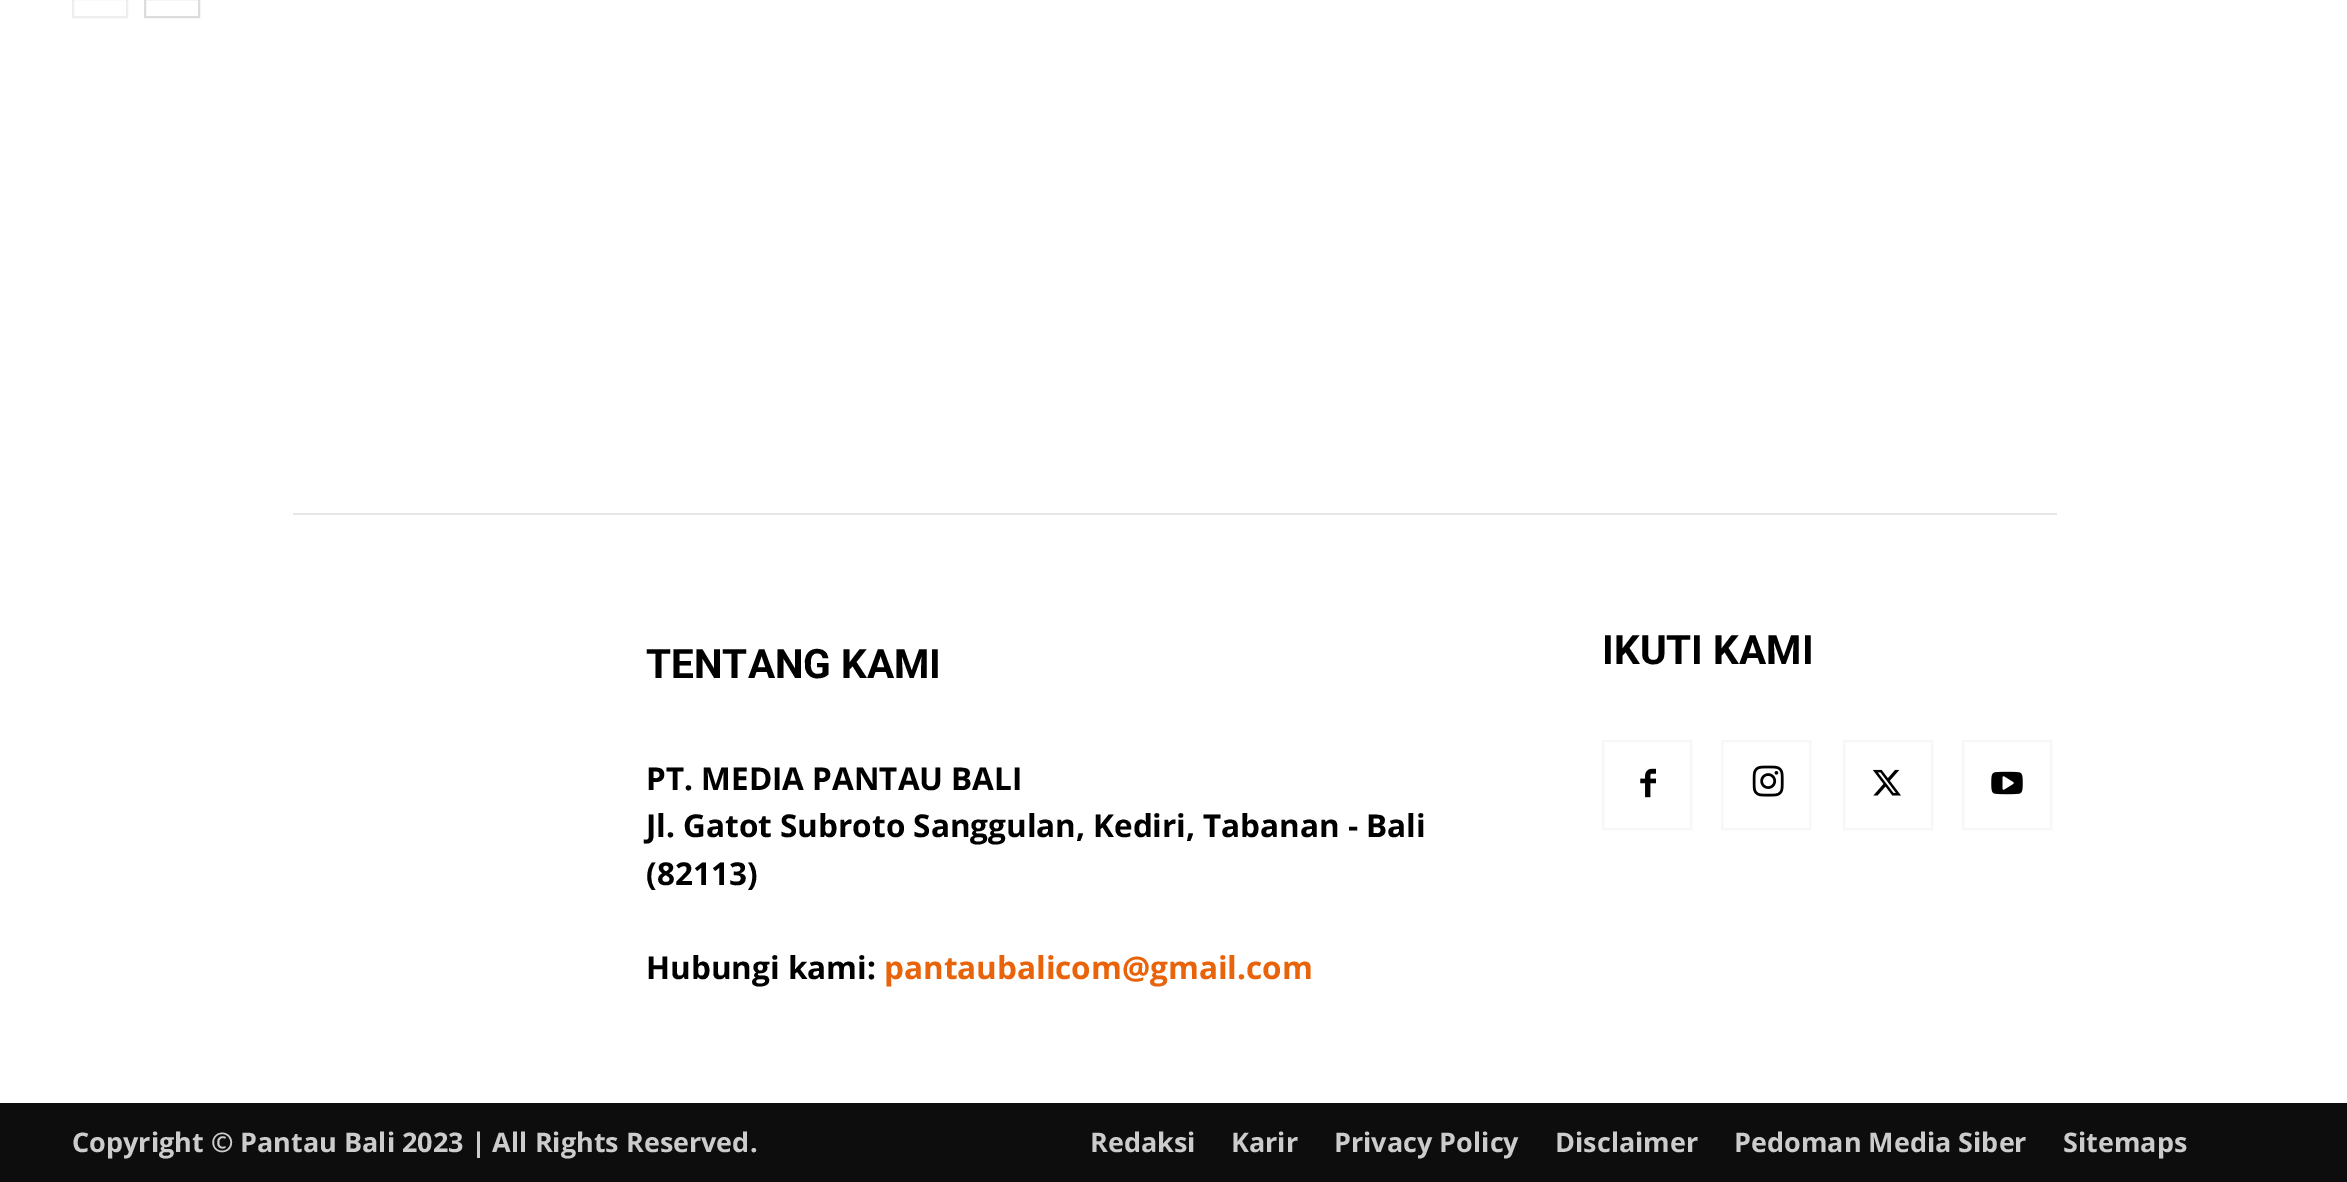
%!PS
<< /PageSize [2347 1182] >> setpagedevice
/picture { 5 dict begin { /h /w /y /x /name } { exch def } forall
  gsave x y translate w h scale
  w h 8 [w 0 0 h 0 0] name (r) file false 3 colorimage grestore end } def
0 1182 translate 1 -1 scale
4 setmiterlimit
1 setgray
0 0 2347 1182 rectfill
0.933 setgray
2 setlinewidth
73 -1 54 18 rectstroke
0.863 setgray
145 -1 54 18 rectstroke
0.902 setgray
293 513 1764 2 rectfill
/Roboto-Bold [40.5 0 0 -40.5 0 0] selectfont
0 setgray
646 678 moveto (TENTANG KAMI) show
/OpenSans-Bold [31.5 0 0 -31.5 0 0] selectfont
646 790 moveto (PT. MEDIA PANTAU BALI) show
646 837 moveto (Jl. Gatot Subroto Sanggulan, Kediri, Tabanan - Bali) show
646 885 moveto (\(82113\)) show
646 979 moveto (Hubungi kami:) show
0.91 0.388 0.039 setrgbcolor
884 979 moveto (pantaubalicom@gmail.com) show
/Roboto-Bold [40.5 0 0 -40.5 0 0] selectfont
0 setgray
1602 664 moveto (IKUTI KAMI) show
(img1.rgb) 1640 768 16 30 picture
0.969 setgray
1603 741 88 88 rectstroke
(img2.rgb) 1752 765 32 32 picture
1722 741 88 88 rectstroke
(img3.rgb) 1872 769 29 27 picture
1844 741 88 88 rectstroke
(img4.rgb) 1991 771 32 24 picture
1963 741 88 88 rectstroke
0.051 setgray
0 1103 2347 79 rectfill
/OpenSans-Bold [27 0 0 -27 0 0] selectfont
0.8 setgray
72 1152 moveto (Copyright © Pantau Bali 2023 | All Rights Reserved.) show
1090 1152 moveto (Redaksi) show
1231 1152 moveto (Karir) show
1334 1152 moveto (Privacy Policy) show
1555 1152 moveto (Disclaimer) show
1734 1152 moveto (Pedoman Media Siber) show
2063 1152 moveto (Sitemaps) show
showpage
